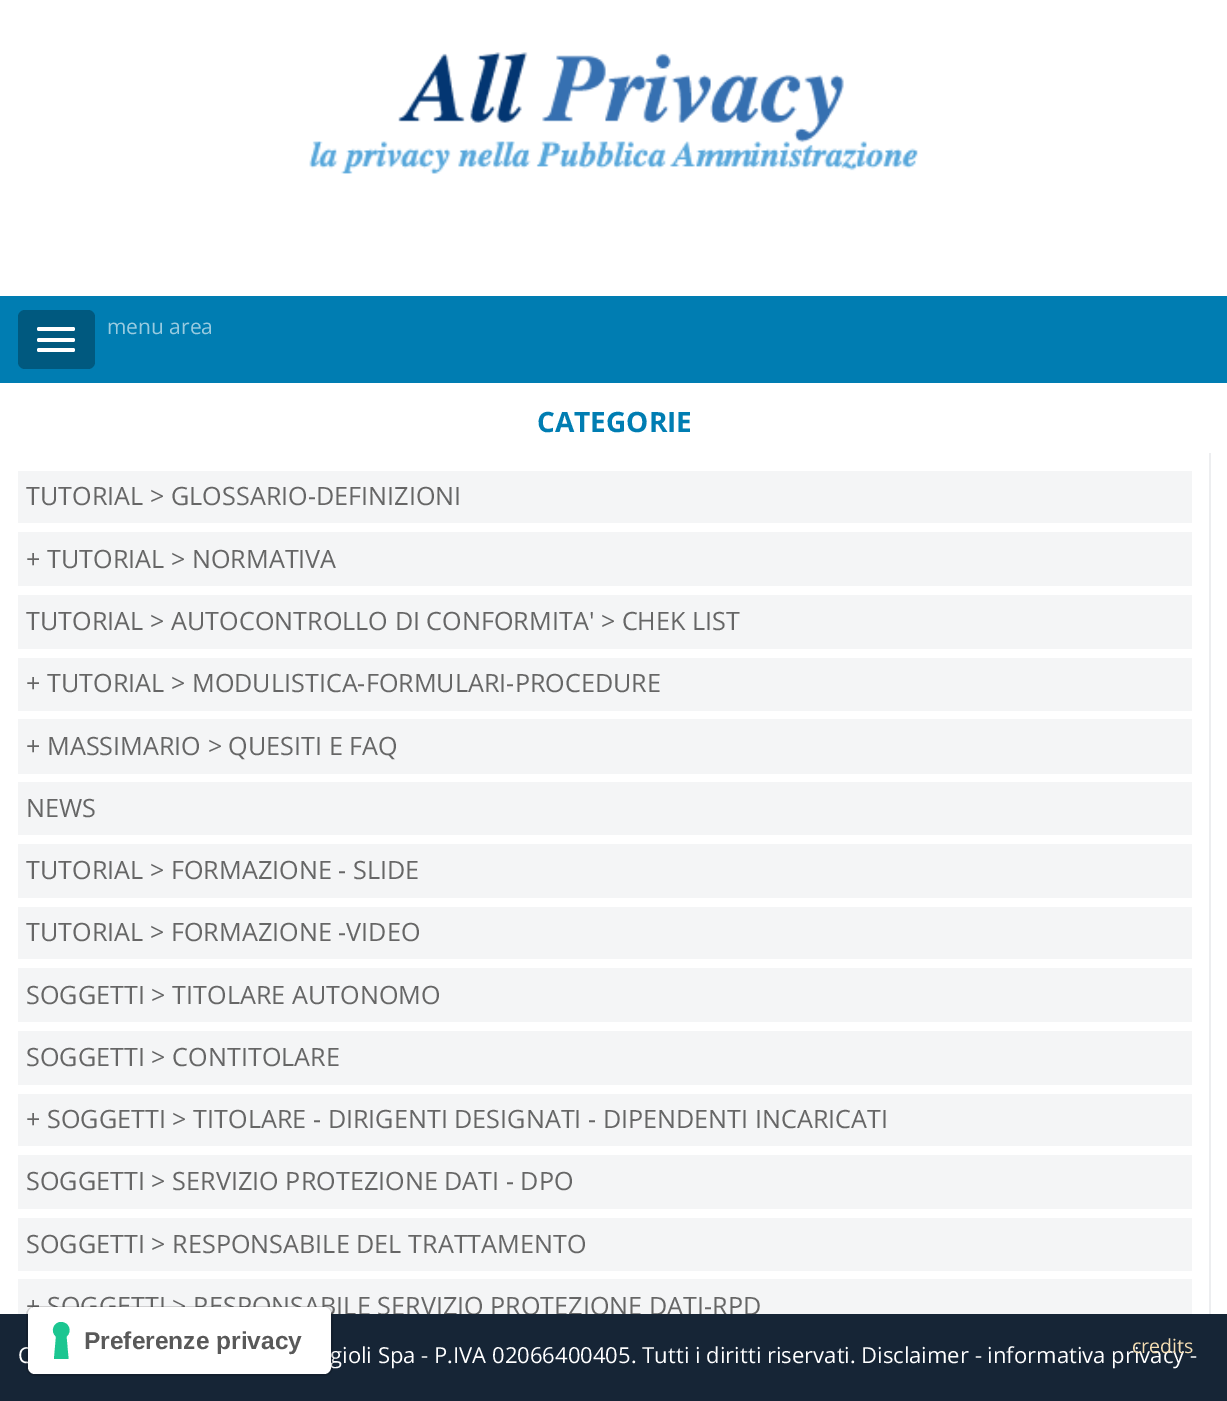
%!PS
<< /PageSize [1227 1401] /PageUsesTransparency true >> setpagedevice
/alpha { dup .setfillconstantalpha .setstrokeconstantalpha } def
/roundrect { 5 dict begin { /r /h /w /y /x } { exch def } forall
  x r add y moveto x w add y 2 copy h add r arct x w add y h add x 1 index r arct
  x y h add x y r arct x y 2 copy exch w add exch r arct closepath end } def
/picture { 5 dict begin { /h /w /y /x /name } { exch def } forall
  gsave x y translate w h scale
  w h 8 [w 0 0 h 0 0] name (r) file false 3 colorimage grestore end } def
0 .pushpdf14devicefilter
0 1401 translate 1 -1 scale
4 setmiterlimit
1 setgray
0 0 1227 1401 rectfill
(img1.rgb) 309 52 609 122 picture
0 0.49 0.698 setrgbcolor
0 296 1227 87 rectfill
0 0.349 0.498 setrgbcolor
18 310 77 59 7 roundrect fill
1 setgray
37 327 38 4 2 roundrect fill
/OpenSans-Regular [21 0 0 -21 0 0] selectfont
0.6 0.796 0.878 setrgbcolor
107 334 moveto (menu area) show
1 setgray
37 338 38 4 2 roundrect fill
37 348 38 4 2 roundrect fill
/OpenSans-Bold [28 0 0 -28 0 0] selectfont
0 0.49 0.698 setrgbcolor
537 432 moveto (CATEGORIE) show
0.929 0.933 0.941 setrgbcolor
1209 453 2 861 rectfill
0.957 0.961 0.965 setrgbcolor
18 471 1174 52 rectfill
/OpenSans-Regular [25.2 0 0 -25.2 0 0] selectfont
0.4 setgray
26 505 moveto (TUTORIAL > GLOSSARIO-DEFINIZIONI) show
0.957 0.961 0.965 setrgbcolor
18 532 1174 54 rectfill
0.4 setgray
26 568 moveto (+ TUTORIAL > NORMATIVA) show
0.957 0.961 0.965 setrgbcolor
18 595 1174 54 rectfill
0.4 setgray
26 630 moveto (TUTORIAL > AUTOCONTROLLO DI CONFORMITA' > CHEK LIST) show
0.957 0.961 0.965 setrgbcolor
18 658 1174 53 rectfill
0.4 setgray
26 692 moveto (+ TUTORIAL > MODULISTICA-FORMULARI-PROCEDURE) show
0.957 0.961 0.965 setrgbcolor
18 719 1174 55 rectfill
0.4 setgray
26 755 moveto (+ MASSIMARIO > QUESITI E FAQ) show
0.957 0.961 0.965 setrgbcolor
18 782 1174 53 rectfill
0.4 setgray
26 817 moveto (NEWS) show
0.957 0.961 0.965 setrgbcolor
18 844 1174 54 rectfill
0.4 setgray
26 879 moveto (TUTORIAL > FORMAZIONE - SLIDE) show
0.957 0.961 0.965 setrgbcolor
18 907 1174 52 rectfill
0.4 setgray
26 941 moveto (TUTORIAL > FORMAZIONE -VIDEO) show
0.957 0.961 0.965 setrgbcolor
18 968 1174 54 rectfill
0.4 setgray
26 1004 moveto (SOGGETTI > TITOLARE AUTONOMO) show
0.957 0.961 0.965 setrgbcolor
18 1031 1174 54 rectfill
0.4 setgray
26 1066 moveto (SOGGETTI > CONTITOLARE) show
0.957 0.961 0.965 setrgbcolor
18 1094 1174 52 rectfill
0.4 setgray
26 1128 moveto (+ SOGGETTI > TITOLARE - DIRIGENTI DESIGNATI - DIPENDENTI INCARICATI) show
0.957 0.961 0.965 setrgbcolor
18 1155 1174 54 rectfill
0.4 setgray
26 1190 moveto (SOGGETTI > SERVIZIO PROTEZIONE DATI - DPO) show
0.957 0.961 0.965 setrgbcolor
18 1218 1174 53 rectfill
0.4 setgray
26 1253 moveto (SOGGETTI > RESPONSABILE DEL TRATTAMENTO) show
0.957 0.961 0.965 setrgbcolor
18 1279 1174 35 rectfill
0.4 setgray
26 1315 moveto (+ SOGGETTI > RESPONSABILE SERVIZIO PROTEZIONE DATI-RPD) show
0.086 0.145 0.212 setrgbcolor
0 1314 1227 87 rectfill
/OpenSans-Regular [22.05 0 0 -22.05 0 0] selectfont
1 setgray
861 1363 moveto (Disclaimer - informativa privacy -) show
/OpenSans-Regular [19.5 0 0 -19.5 0 0] selectfont
0.961 0.871 0.702 setrgbcolor
1132 1353 moveto (credits) show
/OpenSans-Regular [22.05 0 0 -22.05 0 0] selectfont
1 setgray
18 1363 moveto (C) show
330 1363 moveto (gioli Spa - P.IVA 02066400405. Tutti i diritti riservati.) show
0.15 alpha
0 setgray
2 setlinewidth
27 1307 305 68 8 roundrect stroke
1 alpha
1 setgray
28 1307 303 67 7 roundrect fill
0.11 0.776 0.569 setrgbcolor
newpath 61 1322 moveto 69 1322 72.5 1331.5 66.5 1336.5 curveto 68.5 1359 lineto 54 1359 lineto 56 1336.5 lineto 50 1331.5 53.5 1322 61 1322 curveto closepath eofill
/LiberationSans-Bold [24.5 0 0 -24.5 0 0] selectfont
0.349 setgray
84 1349 moveto (Preferenze privacy) show
.poppdf14devicefilter showpage
